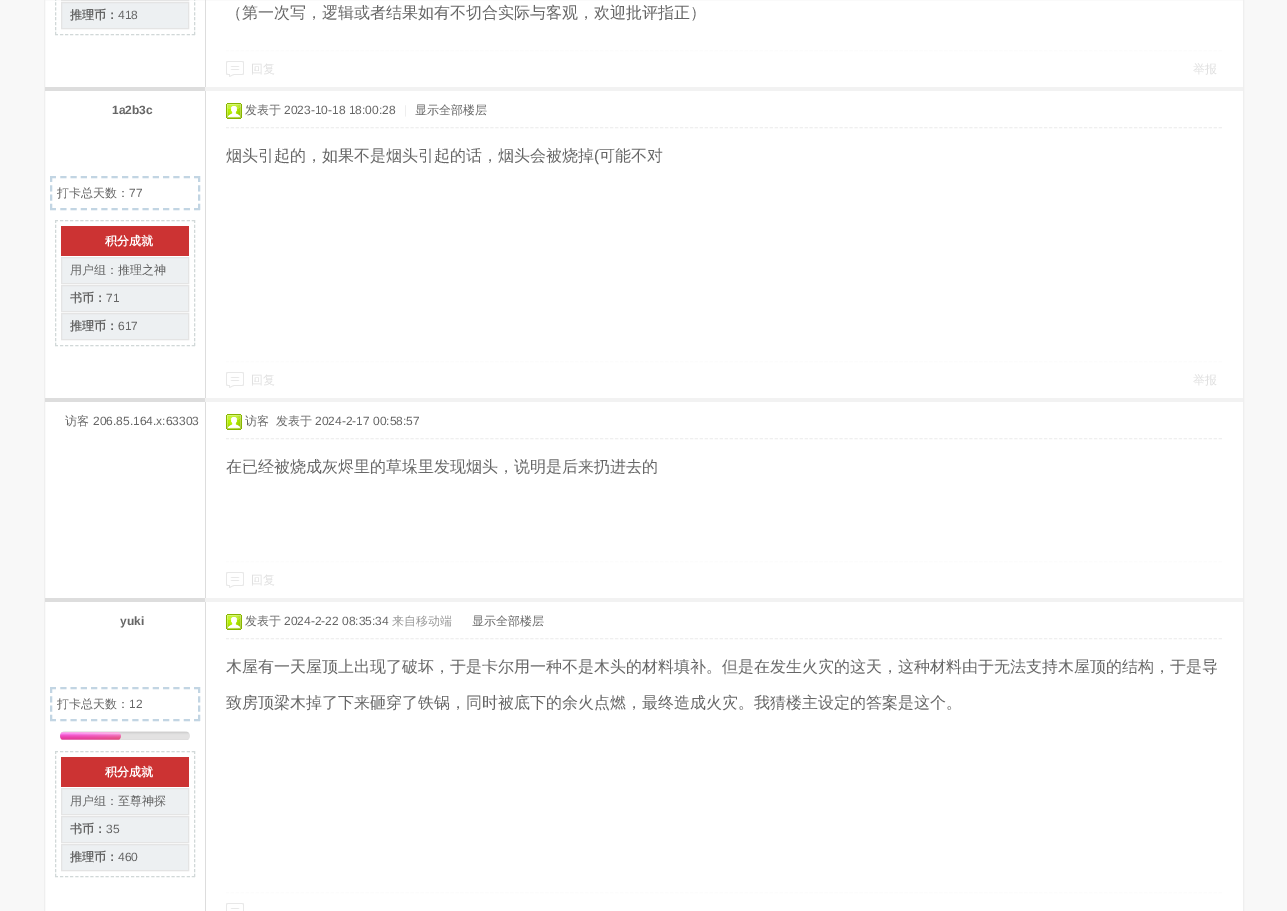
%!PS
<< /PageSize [1287 911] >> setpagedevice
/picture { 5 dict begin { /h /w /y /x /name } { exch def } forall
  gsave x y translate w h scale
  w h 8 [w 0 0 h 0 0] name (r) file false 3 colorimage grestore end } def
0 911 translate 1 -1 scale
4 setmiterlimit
0.973 setgray
0 0 1287 911 rectfill
1 setgray
newpath 44.5 -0.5 moveto 1243.5 -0.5 lineto 1243.5 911.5 lineto 44.5 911.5 lineto closepath gsave fill grestore
0.937 setgray
stroke
0.82 0.847 0.847 setrgbcolor
[3 1.92] 0 setdash
newpath 194.5 -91 moveto 194.5 35 lineto stroke
[3 2.07] 0 setdash
newpath 55 34.5 moveto 195 34.5 lineto stroke
[3 1.92] 0 setdash
newpath 55.5 -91 moveto 55.5 35 lineto stroke
0.894 setgray
[] 0 setdash
61.5 -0.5 127 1 rectstroke
0.929 0.941 0.949 setrgbcolor
newpath 61.5 2.5 moveto 188.5 2.5 lineto 188.5 28.5 lineto 61.5 28.5 lineto closepath gsave fill grestore
0.894 setgray
stroke
/WenQuanYiZenHei-Bold [12 0 0 -12 0 0] selectfont
0.4 setgray
70 19 moveto (推理币：) show
/LiberationSans-Regular [12 0 0 -12 0 0] selectfont
118 19 moveto (418) show
/WenQuanYiZenHei-Medium [16 0 0 -16 0 0] selectfont
226 18 moveto (（第一次写，逻辑或者结果如有不切合实际与客观，欢迎批评指正）) show
0.867 setgray
205 0 1 88 rectfill
0.988 setgray
[3 1.99] 0 setdash
newpath 226 50.5 moveto 1223 50.5 lineto stroke
(img1.rgb) 226 61 18 16 picture
/WenQuanYiZenHei-Medium [12 0 0 -12 0 0] selectfont
0.878 setgray
251 73 moveto (回复) show
1193 73 moveto (举报) show
0.867 setgray
45 87 160 4 rectfill
0.949 setgray
205 87 1038 4 rectfill
/LiberationSans-Bold [12 0 0 -12 0 0] selectfont
0.4 setgray
112 114 moveto (1a2b3c) show
0.761 0.835 0.89 setrgbcolor
2 setlinewidth
[6 4.29] 0 setdash
newpath 50 177 moveto 200 177 lineto stroke
[6 3.33] 0 setdash
newpath 199 176 moveto 199 210 lineto stroke
[6 4.29] 0 setdash
newpath 50 209 moveto 200 209 lineto stroke
[6 3.33] 0 setdash
newpath 51 176 moveto 51 210 lineto stroke
/WenQuanYiZenHei-Medium [12 0 0 -12 0 0] selectfont
0.4 setgray
57 197 moveto (打卡总天数：) show
/LiberationSans-Regular [12 0 0 -12 0 0] selectfont
129 197 moveto (77) show
0.82 0.847 0.847 setrgbcolor
1 setlinewidth
[3 2.07] 0 setdash
newpath 55 220.5 moveto 195 220.5 lineto stroke
[3 1.92] 0 setdash
newpath 194.5 220 moveto 194.5 346 lineto stroke
[3 2.07] 0 setdash
newpath 55 345.5 moveto 195 345.5 lineto stroke
[3 1.92] 0 setdash
newpath 55.5 220 moveto 55.5 346 lineto stroke
0.8 0.2 0.2 setrgbcolor
61 226 128 30 rectfill
/WenQuanYiZenHei-Bold [12 0 0 -12 0 0] selectfont
1 setgray
105 245 moveto (积分成就) show
0.929 0.941 0.949 setrgbcolor
newpath 61.5 257.5 moveto 188.5 257.5 lineto 188.5 283.5 lineto 61.5 283.5 lineto closepath gsave fill grestore
0.894 setgray
[] 0 setdash
stroke
/WenQuanYiZenHei-Medium [12 0 0 -12 0 0] selectfont
0.4 setgray
70 274 moveto (用户组：推理之神) show
0.929 0.941 0.949 setrgbcolor
newpath 61.5 285.5 moveto 188.5 285.5 lineto 188.5 311.5 lineto 61.5 311.5 lineto closepath gsave fill grestore
0.894 setgray
stroke
/WenQuanYiZenHei-Bold [12 0 0 -12 0 0] selectfont
0.4 setgray
70 302 moveto (书币：) show
/LiberationSans-Regular [12 0 0 -12 0 0] selectfont
106 302 moveto (71) show
0.929 0.941 0.949 setrgbcolor
newpath 61.5 313.5 moveto 188.5 313.5 lineto 188.5 339.5 lineto 61.5 339.5 lineto closepath gsave fill grestore
0.894 setgray
stroke
/WenQuanYiZenHei-Bold [12 0 0 -12 0 0] selectfont
0.4 setgray
70 330 moveto (推理币：) show
/LiberationSans-Regular [12 0 0 -12 0 0] selectfont
118 330 moveto (617) show
0.937 setgray
[3 1.99] 0 setdash
newpath 226 127.5 moveto 1223 127.5 lineto stroke
(img2.rgb) 226 103 16 16 picture
/WenQuanYiZenHei-Medium [12 0 0 -12 0 0] selectfont
0.4 setgray
245 114 moveto (发表于) show
/LiberationSans-Regular [12 0 0 -12 0 0] selectfont
284 114 moveto (2023-10-18 18:00:28) show
0.933 setgray
404 114 moveto (|) show
/WenQuanYiZenHei-Medium [12 0 0 -12 0 0] selectfont
0.4 setgray
415 114 moveto (显示全部楼层) show
/WenQuanYiZenHei-Medium [16 0 0 -16 0 0] selectfont
226 161 moveto (烟头引起的，如果不是烟头引起的话，烟头会被烧掉) show
/LiberationSans-Regular [16 0 0 -16 0 0] selectfont
594 161 moveto (\() show
/WenQuanYiZenHei-Medium [16 0 0 -16 0 0] selectfont
599 161 moveto (可能不对) show
0.867 setgray
205 91 1 308 rectfill
0.988 setgray
newpath 226 361.5 moveto 1223 361.5 lineto stroke
(img1.rgb) 226 372 18 16 picture
/WenQuanYiZenHei-Medium [12 0 0 -12 0 0] selectfont
0.878 setgray
251 384 moveto (回复) show
1193 384 moveto (举报) show
0.867 setgray
45 398 160 4 rectfill
0.949 setgray
205 398 1038 4 rectfill
0.4 setgray
65 425 moveto (访客) show
/LiberationSans-Regular [12 0 0 -12 0 0] selectfont
93 425 moveto (206.85.164.x:63303) show
0.937 setgray
newpath 226 438.5 moveto 1223 438.5 lineto stroke
(img2.rgb) 226 414 16 16 picture
/WenQuanYiZenHei-Medium [12 0 0 -12 0 0] selectfont
0.4 setgray
245 425 moveto (访客) show
276 425 moveto (发表于) show
/LiberationSans-Regular [12 0 0 -12 0 0] selectfont
315 425 moveto (2024-2-17 00:58:57) show
/WenQuanYiZenHei-Medium [16 0 0 -16 0 0] selectfont
226 472 moveto (在已经被烧成灰烬里的草垛里发现烟头，说明是后来扔进去的) show
0.867 setgray
205 402 1 197 rectfill
0.988 setgray
newpath 226 561.5 moveto 1223 561.5 lineto stroke
(img1.rgb) 226 572 18 16 picture
/WenQuanYiZenHei-Medium [12 0 0 -12 0 0] selectfont
0.878 setgray
251 584 moveto (回复) show
0.867 setgray
45 598 160 4 rectfill
0.949 setgray
205 598 1038 4 rectfill
0.867 setgray
205 602 1 309 rectfill
0.988 setgray
newpath 226 892.5 moveto 1223 892.5 lineto stroke
(img3.rgb) 226 903 18 8 picture
/LiberationSans-Bold [12 0 0 -12 0 0] selectfont
0.4 setgray
120 625 moveto (yuki) show
0.761 0.835 0.89 setrgbcolor
2 setlinewidth
[6 4.29] 0 setdash
newpath 50 688 moveto 200 688 lineto stroke
[6 3.33] 0 setdash
newpath 199 687 moveto 199 721 lineto stroke
[6 4.29] 0 setdash
newpath 50 720 moveto 200 720 lineto stroke
[6 3.33] 0 setdash
newpath 51 687 moveto 51 721 lineto stroke
/WenQuanYiZenHei-Medium [12 0 0 -12 0 0] selectfont
0.4 setgray
57 708 moveto (打卡总天数：) show
/LiberationSans-Regular [12 0 0 -12 0 0] selectfont
129 708 moveto (12) show
(img4.rgb) 60 731 130 9 picture
(img5.rgb) 60 732 61 8 picture
0.82 0.847 0.847 setrgbcolor
1 setlinewidth
[3 2.07] 0 setdash
newpath 55 751.5 moveto 195 751.5 lineto stroke
[3 1.92] 0 setdash
newpath 194.5 751 moveto 194.5 877 lineto stroke
[3 2.07] 0 setdash
newpath 55 876.5 moveto 195 876.5 lineto stroke
[3 1.92] 0 setdash
newpath 55.5 751 moveto 55.5 877 lineto stroke
0.8 0.2 0.2 setrgbcolor
61 757 128 30 rectfill
/WenQuanYiZenHei-Bold [12 0 0 -12 0 0] selectfont
1 setgray
105 776 moveto (积分成就) show
0.929 0.941 0.949 setrgbcolor
newpath 61.5 788.5 moveto 188.5 788.5 lineto 188.5 814.5 lineto 61.5 814.5 lineto closepath gsave fill grestore
0.894 setgray
[] 0 setdash
stroke
/WenQuanYiZenHei-Medium [12 0 0 -12 0 0] selectfont
0.4 setgray
70 805 moveto (用户组：至尊神探) show
0.929 0.941 0.949 setrgbcolor
newpath 61.5 816.5 moveto 188.5 816.5 lineto 188.5 842.5 lineto 61.5 842.5 lineto closepath gsave fill grestore
0.894 setgray
stroke
/WenQuanYiZenHei-Bold [12 0 0 -12 0 0] selectfont
0.4 setgray
70 833 moveto (书币：) show
/LiberationSans-Regular [12 0 0 -12 0 0] selectfont
106 833 moveto (35) show
0.929 0.941 0.949 setrgbcolor
newpath 61.5 844.5 moveto 188.5 844.5 lineto 188.5 870.5 lineto 61.5 870.5 lineto closepath gsave fill grestore
0.894 setgray
stroke
/WenQuanYiZenHei-Bold [12 0 0 -12 0 0] selectfont
0.4 setgray
70 861 moveto (推理币：) show
/LiberationSans-Regular [12 0 0 -12 0 0] selectfont
118 861 moveto (460) show
0.937 setgray
[3 1.99] 0 setdash
newpath 226 638.5 moveto 1223 638.5 lineto stroke
(img2.rgb) 226 614 16 16 picture
/WenQuanYiZenHei-Medium [12 0 0 -12 0 0] selectfont
0.4 setgray
245 625 moveto (发表于) show
/LiberationSans-Regular [12 0 0 -12 0 0] selectfont
284 625 moveto (2024-2-22 08:35:34) show
/WenQuanYiZenHei-Medium [12 0 0 -12 0 0] selectfont
0.6 setgray
392 625 moveto (来自移动端) show
0.4 setgray
472 625 moveto (显示全部楼层) show
/WenQuanYiZenHei-Medium [16 0 0 -16 0 0] selectfont
226 672 moveto (木屋有一天屋顶上出现了破坏，于是卡尔用一种不是木头的材料填补。但是在发生火灾的这天，这种材料由于无法支持木屋顶的结构，于是导) show
226 708 moveto (致房顶梁木掉了下来砸穿了铁锅，同时被底下的余火点燃，最终造成火灾。我猜楼主设定的答案是这个。) show
showpage
